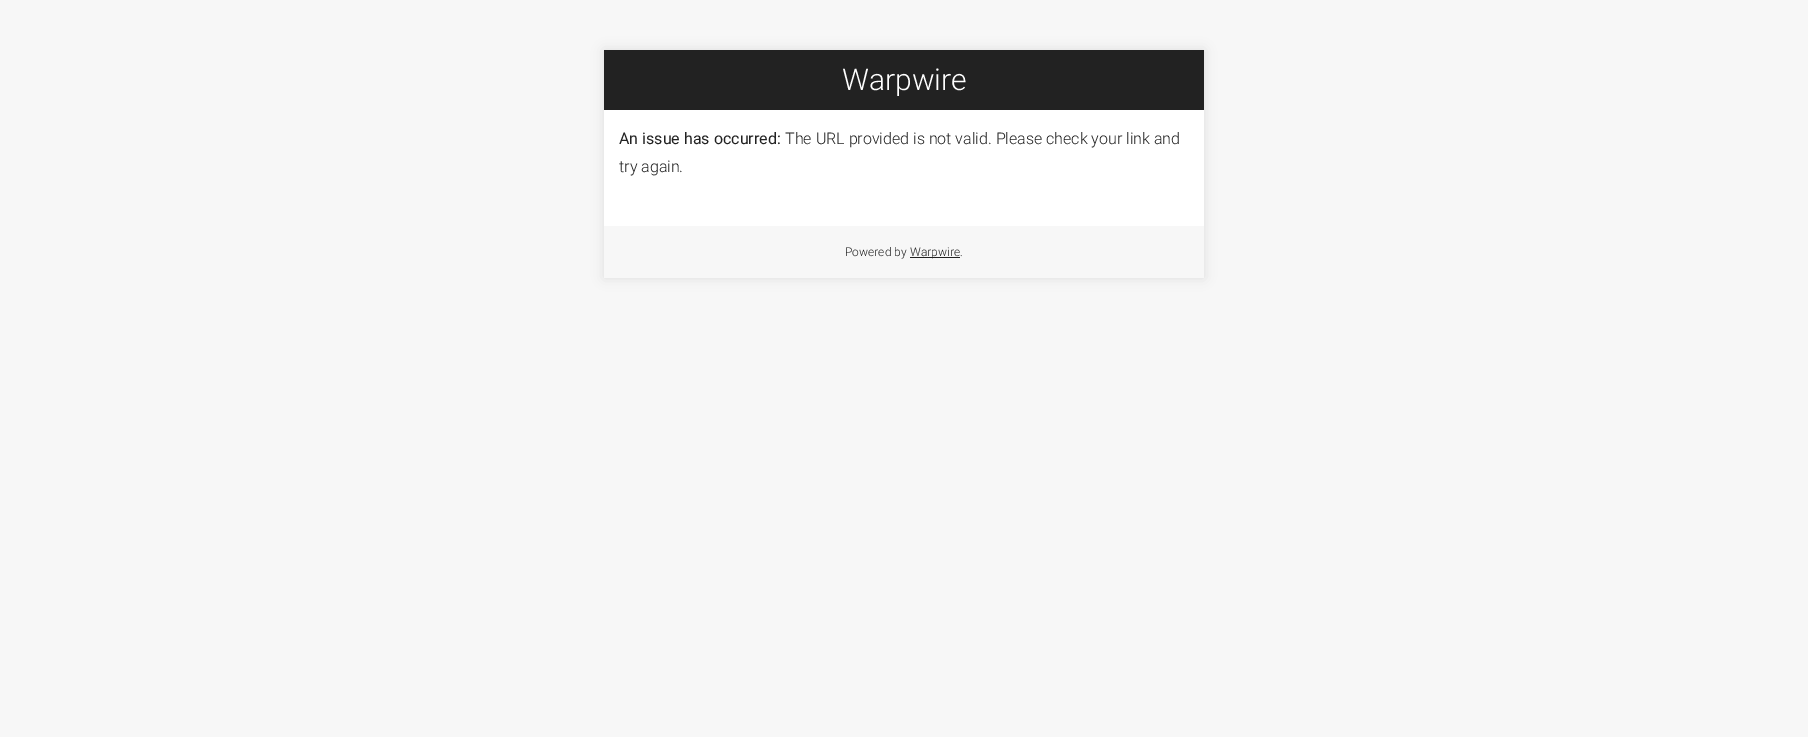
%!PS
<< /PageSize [1808 737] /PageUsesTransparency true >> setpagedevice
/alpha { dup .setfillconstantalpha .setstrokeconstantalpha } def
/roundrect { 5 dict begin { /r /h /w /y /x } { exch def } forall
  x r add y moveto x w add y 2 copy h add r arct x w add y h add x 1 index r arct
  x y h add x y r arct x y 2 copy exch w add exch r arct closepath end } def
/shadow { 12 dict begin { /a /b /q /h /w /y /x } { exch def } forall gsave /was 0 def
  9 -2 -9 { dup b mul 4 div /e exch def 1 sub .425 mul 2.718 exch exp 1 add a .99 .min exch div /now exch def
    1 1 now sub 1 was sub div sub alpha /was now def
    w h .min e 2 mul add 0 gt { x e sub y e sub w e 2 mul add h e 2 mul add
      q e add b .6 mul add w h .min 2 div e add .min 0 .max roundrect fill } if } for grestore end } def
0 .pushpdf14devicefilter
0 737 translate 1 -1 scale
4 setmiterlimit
0.969 setgray
0 0 1808 737 rectfill
gsave
newpath 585 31 moveto 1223 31 lineto 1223 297 lineto 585 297 lineto closepath 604 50 moveto 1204 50 lineto 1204 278 lineto 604 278 lineto closepath eoclip newpath
0 setgray
604 50 600 228 0 6 0.1 shadow
grestore
0.133 setgray
604 50 600 60 rectfill
/Roboto-Light [30 0 0 -30 0 0] selectfont
1 setgray
842 90 moveto (Warpwire) show
604 110 600 116 rectfill
/Roboto-Regular [16 0 0 -16 0 0] selectfont
0.133 setgray
619 144 moveto (An issue has occurred:) show
/Roboto-Light [16 0 0 -16 0 0] selectfont
785 144 moveto (The URL provided is not valid. Please check your link and) show
619 172 moveto (try again.) show
/Roboto-Light [12 0 0 -12 0 0] selectfont
845 256 moveto (Powered by) show
910 257 50 1 rectfill
910 256 moveto (Warpwire.) show
.poppdf14devicefilter showpage
